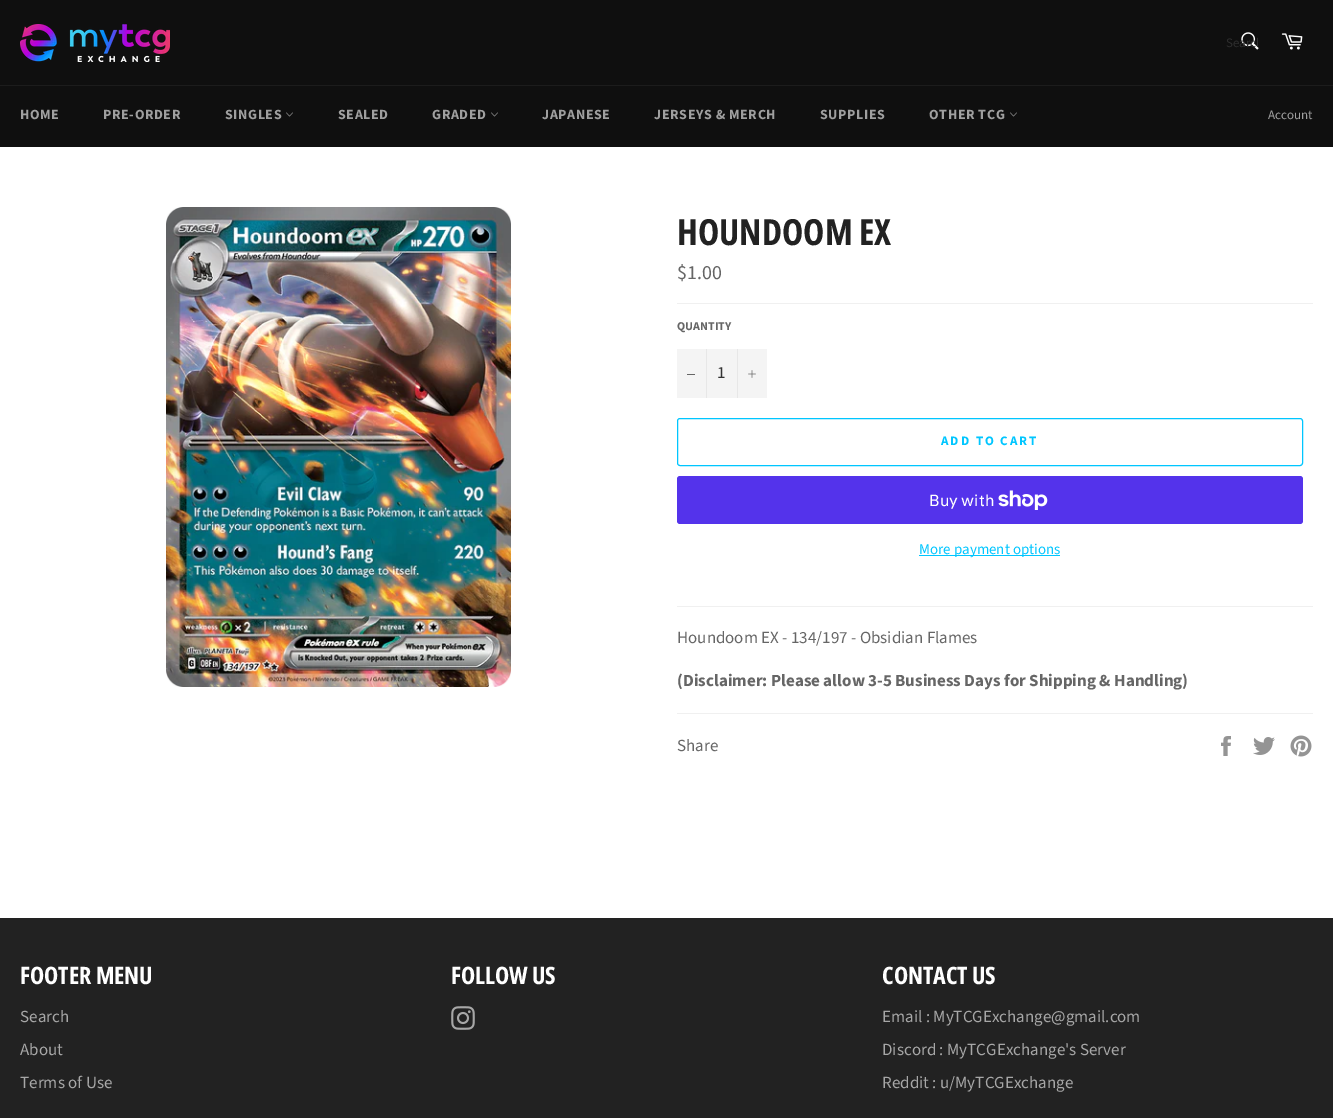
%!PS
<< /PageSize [1333 1118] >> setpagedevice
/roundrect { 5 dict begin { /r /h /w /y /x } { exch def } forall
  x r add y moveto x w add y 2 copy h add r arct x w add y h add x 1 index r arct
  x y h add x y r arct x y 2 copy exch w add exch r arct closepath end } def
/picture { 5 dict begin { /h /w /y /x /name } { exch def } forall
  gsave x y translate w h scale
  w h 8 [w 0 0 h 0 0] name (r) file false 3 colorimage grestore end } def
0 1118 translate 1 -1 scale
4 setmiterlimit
0.059 setgray
0 0 1333 1118 rectfill
(img1.rgb) 20 24 150 38 picture
(img2.rgb) 1241 32 18 18 picture
gsave
1226 34 32 18 rectclip
/SourceSansPro-Regular [13 0 0 -13 0 0] selectfont
0.176 setgray
1226 47 moveto (Search) show
grestore
(img3.rgb) 1281 33 22 17 picture
0.11 setgray
0 85 1333 1 rectfill
/SourceSansPro-Bold [14 0 0 -14 0 0] selectfont
0.624 setgray
20 119 moveto 0.6 0 (HOME) ashow
103 119 moveto 0.6 0 (PRE-ORDER) ashow
225 119 moveto 0.6 0 (SINGLES) ashow
(img4.rgb) 286 112 7 5 picture
338 119 moveto 0.6 0 (SEALED) ashow
432 119 moveto 0.6 0 (GRADED) ashow
(img4.rgb) 491 112 7 5 picture
542 119 moveto 0.6 0 (JAPANESE) ashow
654 119 moveto 0.6 0 (JERSEYS & MERCH) ashow
820 119 moveto 0.6 0 (SUPPLIES) ashow
929 119 moveto 0.6 0 (OTHER TCG) ashow
(img4.rgb) 1010 112 7 5 picture
/SourceSansPro-Regular [13 0 0 -13 0 0] selectfont
1268 119 moveto (Account) show
1 setgray
0 147 1333 771 rectfill
(img5.rgb) 166 207 345 480 picture
/OpenSansCondensed-Bold [36 0 0 -36 0 0] selectfont
0.133 setgray
677 245 moveto (HOUNDOOM EX) show
/SourceSansPro-Regular [20 0 0 -20 0 0] selectfont
0.4 setgray
677 279 moveto ($1.00) show
0.941 setgray
677 303 636 1 rectfill
/SourceSansPro-Bold [12 0 0 -12 0 0] selectfont
0.4 setgray
677 330 moveto (QUANTITY) show
0.957 setgray
677 349 90 49 rectfill
0.906 setgray
706 349 1 49 rectfill
0.4 setgray
687 374 8 1 rectfill
/SourceSansPro-Regular [17 0 0 -17 0 0] selectfont
0.2 setgray
717 378 moveto (1) show
0.906 setgray
737 349 1 49 rectfill
(img6.rgb) 748 370 8 8 picture
0 0.776 1 setrgbcolor
677.5 418.5 625 47 2.5 roundrect stroke
/SourceSansPro-Bold [13 0 0 -13 0 0] selectfont
941 445 moveto 2 0 (ADD TO CART) ashow
0.329 0.2 0.922 setrgbcolor
677 476 626 48 3 roundrect fill
/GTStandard-Regular [16 0 0 -16 0 0] selectfont
1 setgray
929 506 moveto (Buy with) show
(img7.rgb) 998 490 50 20 picture
0 0.776 1 setrgbcolor
919 555 141 1 rectfill
/SourceSansPro-Regular [15 0 0 -15 0 0] selectfont
919 554 moveto (More payment options) show
0.941 setgray
677 606 636 1 rectfill
/SourceSansPro-Regular [17 0 0 -17 0 0] selectfont
0.4 setgray
677 643 moveto (Houndoom EX - 134/197 - Obsidian Flames) show
/SourceSansPro-Bold [17 0 0 -17 0 0] selectfont
677 686 moveto (\(Disclaimer: Please allow 3-5 Business Days for Shipping & Handling\)) show
0.941 setgray
677 713 636 1 rectfill
/SourceSansPro-Regular [17 0 0 -17 0 0] selectfont
0.4 setgray
677 751 moveto (Share) show
(img8.rgb) 1221 736 10 20 picture
(img9.rgb) 1253 737 22 18 picture
(img10.rgb) 1290 735 22 22 picture
0.133 setgray
0 918 1333 200 rectfill
/OpenSansCondensed-Bold [24 0 0 -24 0 0] selectfont
1 setgray
20 984 moveto (FOOTER MENU) show
/SourceSansPro-Regular [17 0 0 -17 0 0] selectfont
0.655 setgray
20 1022 moveto (Search) show
20 1055 moveto (About) show
20 1088 moveto (Terms of Use) show
/OpenSansCondensed-Bold [24 0 0 -24 0 0] selectfont
1 setgray
451 984 moveto (FOLLOW US) show
(img11.rgb) 451 1006 24 24 picture
882 984 moveto (CONTACT US) show
/SourceSansPro-Regular [17 0 0 -17 0 0] selectfont
0.655 setgray
882 1022 moveto (Email : MyTCGExchange@gmail.com) show
882 1055 moveto (Discord : MyTCGExchange's Server) show
882 1088 moveto (Reddit : u/MyTCGExchange) show
showpage
